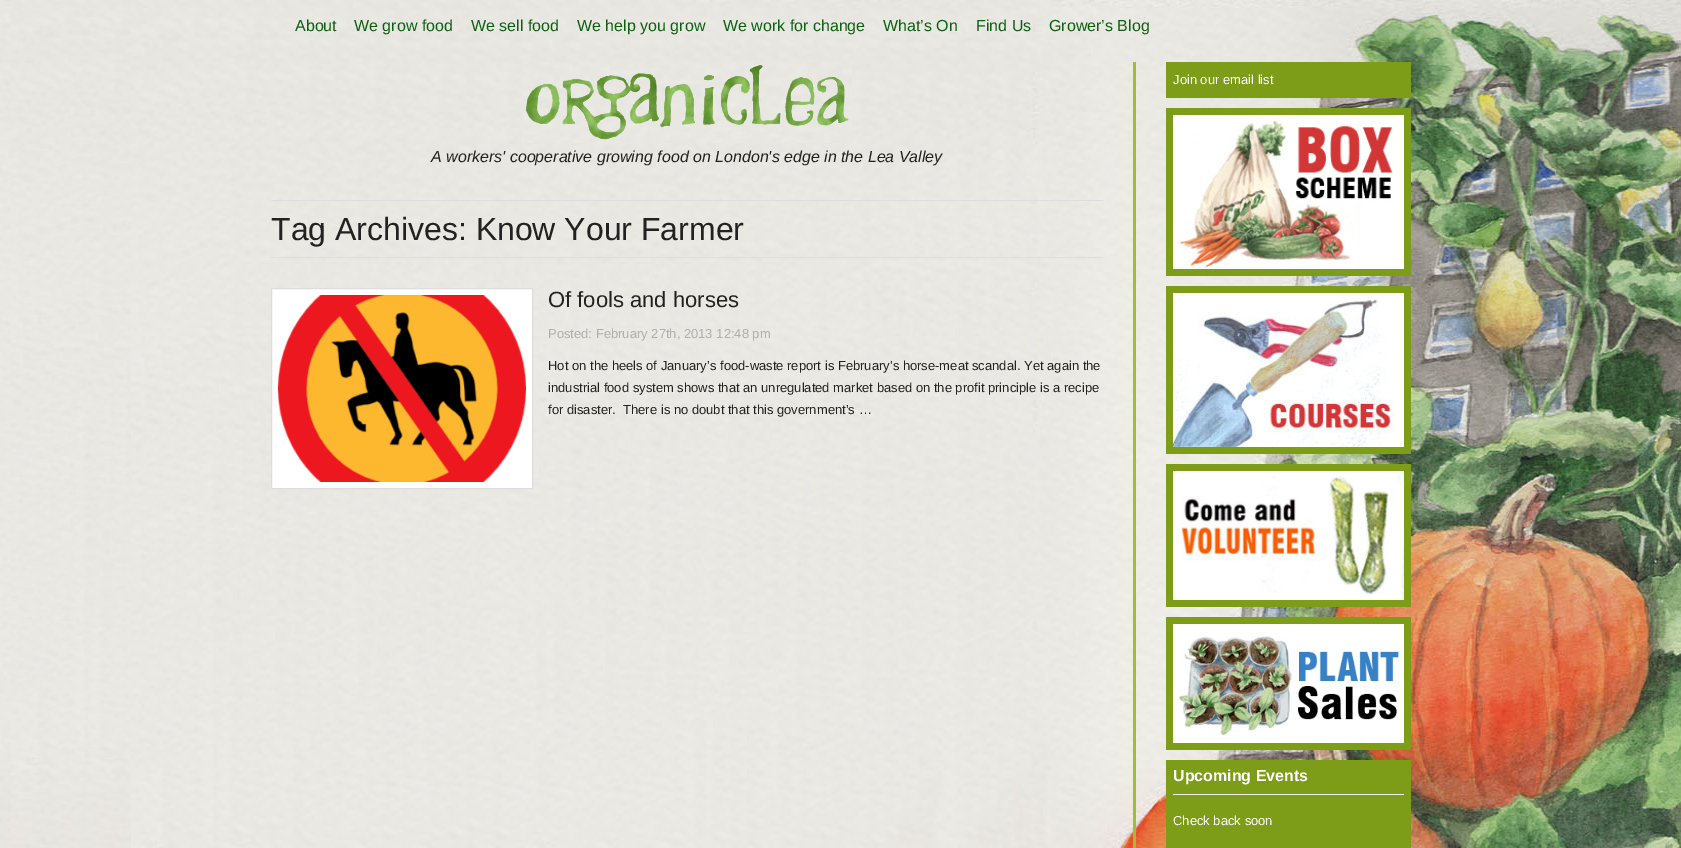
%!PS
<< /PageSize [1681 848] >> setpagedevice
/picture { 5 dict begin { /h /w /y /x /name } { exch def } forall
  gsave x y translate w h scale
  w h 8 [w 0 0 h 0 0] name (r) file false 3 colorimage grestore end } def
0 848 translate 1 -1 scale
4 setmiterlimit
1 setgray
0 0 1681 848 rectfill
(img1.rgb) 0 0 131 848 picture
(img2.rgb) 131 0 1550 848 picture
/LiberationSans-Regular [16 0 0 -16 0 0] selectfont
0.043 0.38 0.059 setrgbcolor
295 31 moveto (About) show
354 31 moveto (We grow food) show
471 31 moveto (We sell food) show
577 31 moveto (We help you grow) show
723 31 moveto (We work for change) show
883 31 moveto (What’s On) show
976 31 moveto (Find Us) show
1049 31 moveto (Grower’s Blog) show
(img3.rgb) 522 62 330 81 picture
/LiberationSans-Italic [16 0 0 -16 0 0] selectfont
0.133 setgray
431 162 moveto (A workers' cooperative growing food on London's edge in the Lea Valley) show
0.867 setgray
271 200 832 1 rectfill
271 257 832 1 rectfill
/LiberationSans-Regular [32 0 0 -32 0 0] selectfont
0.133 setgray
271 240 moveto (Tag Archives: Know Your Farmer) show
1 setgray
newpath 271.5 288.5 moveto 532.5 288.5 lineto 532.5 488.5 lineto 271.5 488.5 lineto closepath gsave fill grestore
0.867 setgray
stroke
(img4.rgb) 278 295 248 187 picture
/LiberationSans-Regular [22 0 0 -22 0 0] selectfont
0.133 setgray
548 307 moveto (Of fools and horses) show
/LiberationSans-Regular [13 0 0 -13 0 0] selectfont
0.686 0.686 0.678 setrgbcolor
548 338 moveto (Posted: February 27th, 2013 12:48 pm) show
0.133 setgray
548 370 moveto (Hot on the heels of January’s food-waste report is February’s horse-meat scandal. Yet again the) show
548 392 moveto (industrial food system shows that an unregulated market based on the profit principle is a recipe) show
548 414 moveto (for disaster.  There is no doubt that this government’s …) show
0.62 0.753 0.176 setrgbcolor
1133 62 3 786 rectfill
0.49 0.612 0.09 setrgbcolor
1166 62 245 36 rectfill
1 setgray
1173 84 moveto (Join our email list) show
0.49 0.612 0.09 setrgbcolor
1166 108 245 168 rectfill
(img5.rgb) 1173 115 231 154 picture
1166 286 245 168 rectfill
(img6.rgb) 1173 293 231 154 picture
1166 464 245 143 rectfill
(img7.rgb) 1173 471 231 129 picture
1166 617 245 133 rectfill
(img8.rgb) 1173 624 231 119 picture
1166 760 245 88 rectfill
0.933 setgray
1173 794 231 1 rectfill
/LiberationSans-Bold [16 0 0 -16 0 0] selectfont
1 setgray
1173 781 moveto (Upcoming Events) show
/LiberationSans-Regular [13 0 0 -13 0 0] selectfont
1173 825 moveto (Check back soon) show
showpage
